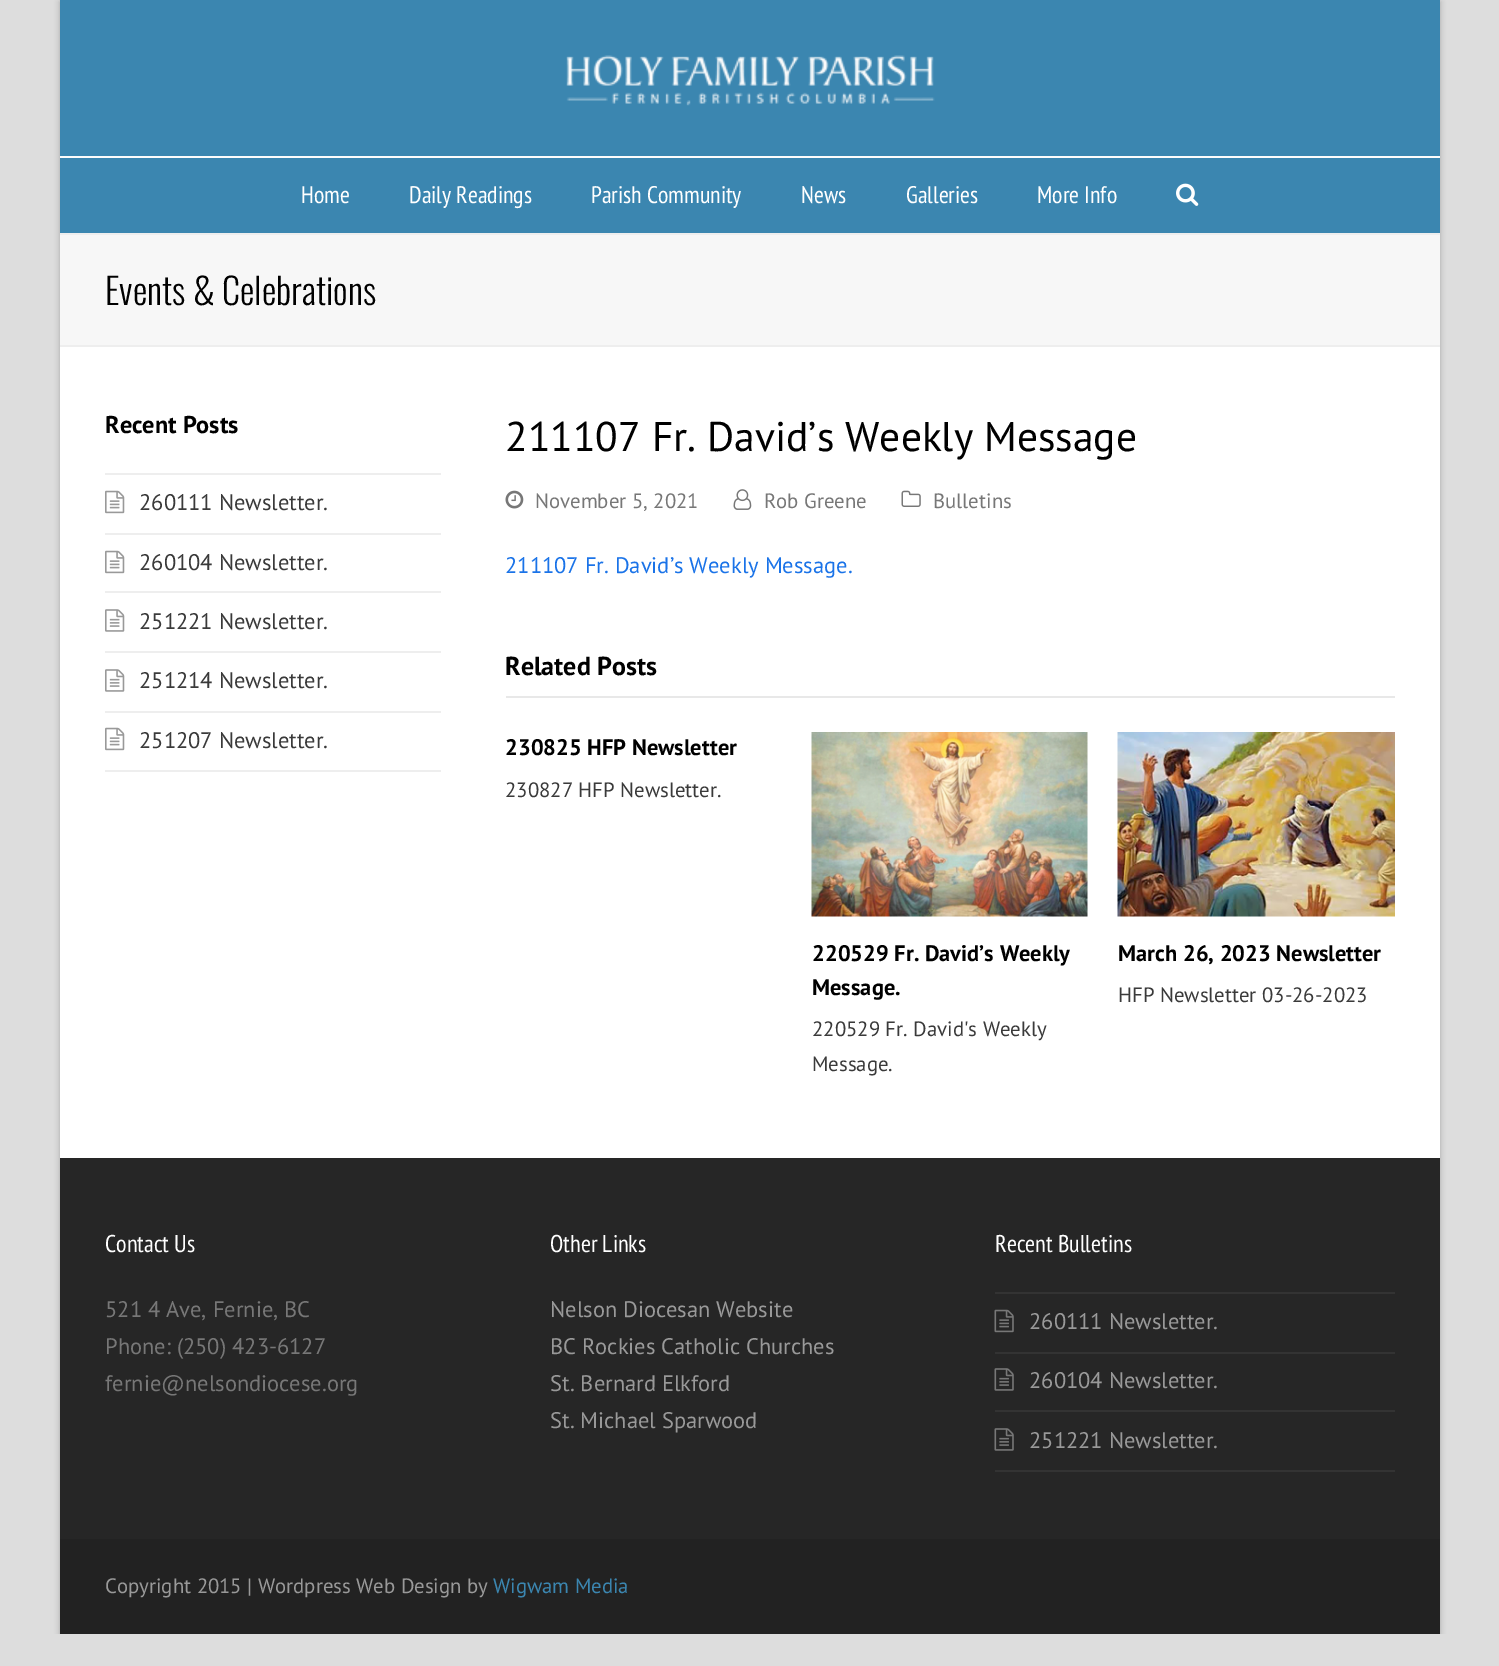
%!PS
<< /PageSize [1499 1666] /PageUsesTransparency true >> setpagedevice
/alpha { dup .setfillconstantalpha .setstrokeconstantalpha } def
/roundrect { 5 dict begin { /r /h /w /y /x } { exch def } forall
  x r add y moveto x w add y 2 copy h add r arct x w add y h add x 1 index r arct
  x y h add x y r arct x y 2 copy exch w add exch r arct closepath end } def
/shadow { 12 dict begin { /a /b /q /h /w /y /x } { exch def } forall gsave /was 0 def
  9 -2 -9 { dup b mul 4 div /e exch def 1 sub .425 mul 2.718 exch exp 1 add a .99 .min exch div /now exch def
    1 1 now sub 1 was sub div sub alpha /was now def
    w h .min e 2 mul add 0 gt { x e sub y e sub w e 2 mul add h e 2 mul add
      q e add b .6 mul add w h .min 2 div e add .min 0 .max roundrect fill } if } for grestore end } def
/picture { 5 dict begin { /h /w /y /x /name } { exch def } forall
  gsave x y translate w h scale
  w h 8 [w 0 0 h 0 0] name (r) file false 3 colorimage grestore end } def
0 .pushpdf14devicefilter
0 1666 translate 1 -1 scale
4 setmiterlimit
0.867 setgray
0 0 1499 1666 rectfill
gsave
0 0 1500 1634 rectclip
0 setgray
60 2 1380 1633 0 3 0.25 shadow
grestore
1 setgray
60 347 1380 811 rectfill
0.231 0.525 0.69 setrgbcolor
60 0 1380 233 rectfill
(img1.rgb) 566 55 369 51 picture
0.988 setgray
60 156 1380 2 rectfill
/PTSansNarrow-Regular [24 0 0 -24 0 0] selectfont
1 setgray
301 203 moveto (Home) show
409 203 moveto (Daily Readings) show
591 203 moveto (Parish Community) show
801 203 moveto (News) show
906 203 moveto (Galleries) show
1037 203 moveto (More Info) show
(img2.rgb) 1176 183 23 23 picture
0.969 setgray
60 235 1380 110 rectfill
0.933 setgray
60 233 1380 2 rectfill
60 345 1380 2 rectfill
/Oswald-Light [36.25 0 0 -36.25 0 0] selectfont
0 setgray
105 305 moveto (Events & Celebrations) show
/PTSans-Bold [24.25 0 0 -24.25 0 0] selectfont
105 433 moveto (Recent Posts) show
0.933 setgray
105 473 336 2 rectfill
105 533 336 2 rectfill
(img3.rgb) 105 490 20 24 picture
/PTSans-Regular [22.5 0 0 -22.5 0 0] selectfont
0.227 setgray
139 510 moveto (260111 Newsletter.) show
0.933 setgray
105 591 336 2 rectfill
(img3.rgb) 105 550 20 24 picture
0.227 setgray
139 570 moveto (260104 Newsletter.) show
0.933 setgray
105 651 336 2 rectfill
(img4.rgb) 105 609 20 23 picture
0.227 setgray
139 629 moveto (251221 Newsletter.) show
0.933 setgray
105 711 336 2 rectfill
(img4.rgb) 105 669 20 23 picture
0.227 setgray
139 688 moveto (251214 Newsletter.) show
0.933 setgray
105 770 336 2 rectfill
(img3.rgb) 105 727 20 24 picture
0.227 setgray
139 748 moveto (251207 Newsletter.) show
/PTSans-Regular [41.5 0 0 -41.5 0 0] selectfont
0 setgray
505 451 moveto (211107 Fr. David’s Weekly Message) show
(img5.rgb) 505 490 19 19 picture
/PTSans-Regular [20.75 0 0 -20.75 0 0] selectfont
0.467 setgray
535 508 moveto (November 5, 2021) show
(img6.rgb) 733 489 19 21 picture
764 508 moveto (Rob Greene) show
(img7.rgb) 901 490 20 17 picture
933 508 moveto (Bulletins) show
/PTSans-Regular [22.5 0 0 -22.5 0 0] selectfont
0.102 0.451 0.91 setrgbcolor
505 573 moveto (211107 Fr. David’s Weekly Message.) show
0.91 setgray
506 696 889 2 rectfill
/PTSans-Bold [26 0 0 -26 0 0] selectfont
0 setgray
505 675 moveto (Related Posts) show
/PTSans-Bold [22.5 0 0 -22.5 0 0] selectfont
505 755 moveto (230825 HFP Newsletter) show
/PTSans-Regular [20.75 0 0 -20.75 0 0] selectfont
0.227 setgray
505 797 moveto (230827 HFP Newsletter.) show
(img8.rgb) 811 732 277 185 picture
/PTSans-Bold [22.5 0 0 -22.5 0 0] selectfont
0 setgray
812 961 moveto (220529 Fr. David’s Weekly) show
812 995 moveto (Message.) show
/PTSans-Regular [20.75 0 0 -20.75 0 0] selectfont
0.227 setgray
812 1036 moveto (220529 Fr. David's Weekly) show
812 1071 moveto (Message.) show
(img9.rgb) 1117 732 278 185 picture
/PTSans-Bold [22.5 0 0 -22.5 0 0] selectfont
0 setgray
1118 961 moveto (March 26, 2023 Newsletter) show
/PTSans-Regular [20.75 0 0 -20.75 0 0] selectfont
0.227 setgray
1118 1002 moveto (HFP Newsletter 03-26-2023) show
0.149 setgray
60 1158 1380 381 rectfill
/PTSansNarrow-Regular [24.25 0 0 -24.25 0 0] selectfont
1 setgray
105 1252 moveto (Contact Us) show
/PTSans-Regular [22.5 0 0 -22.5 0 0] selectfont
0.467 setgray
105 1317 moveto (521 4 Ave, Fernie, BC) show
105 1354 moveto (Phone: \(250\) 423-6127) show
105 1391 moveto (fernie@nelsondiocese.org) show
/PTSansNarrow-Regular [24.25 0 0 -24.25 0 0] selectfont
1 setgray
550 1252 moveto (Other Links) show
/PTSans-Regular [22.5 0 0 -22.5 0 0] selectfont
0.6 setgray
550 1317 moveto (Nelson Diocesan Website) show
550 1354 moveto (BC Rockies Catholic Churches) show
550 1391 moveto (St. Bernard Elkford) show
550 1428 moveto (St. Michael Sparwood) show
/PTSansNarrow-Regular [24.25 0 0 -24.25 0 0] selectfont
1 setgray
995 1252 moveto (Recent Bulletins) show
0.2 setgray
995 1292 400 2 rectfill
995 1352 400 2 rectfill
(img10.rgb) 994 1309 20 24 picture
/PTSans-Regular [22.5 0 0 -22.5 0 0] selectfont
0.6 setgray
1029 1329 moveto (260111 Newsletter.) show
0.2 setgray
995 1410 400 2 rectfill
(img11.rgb) 994 1368 20 23 picture
0.6 setgray
1029 1388 moveto (260104 Newsletter.) show
0.2 setgray
995 1470 400 2 rectfill
(img11.rgb) 994 1428 20 23 picture
0.6 setgray
1029 1448 moveto (251221 Newsletter.) show
0.133 setgray
60 1539 1380 95 rectfill
/PTSans-Regular [20.75 0 0 -20.75 0 0] selectfont
0.6 setgray
105 1593 moveto (Copyright 2015 | Wordpress Web Design by) show
0.231 0.525 0.69 setrgbcolor
493 1593 moveto (Wigwam Media) show
.poppdf14devicefilter showpage
